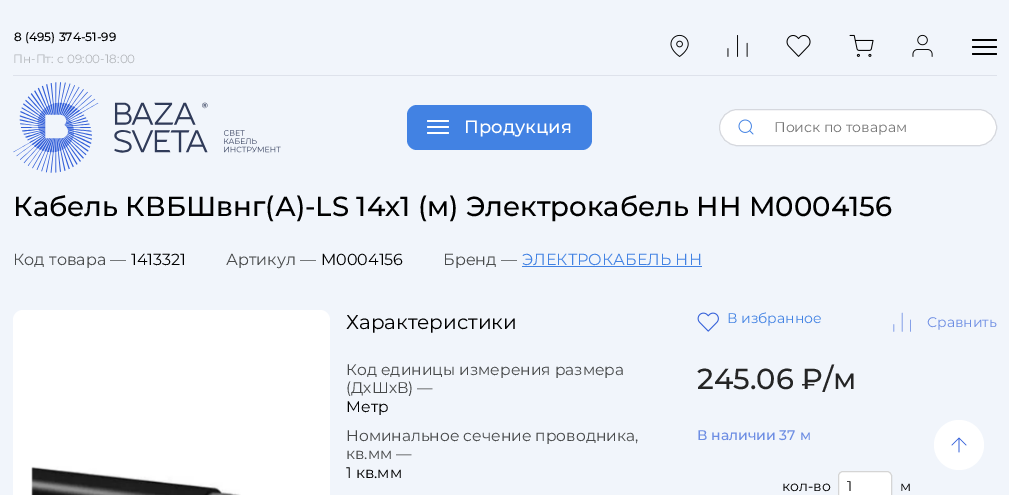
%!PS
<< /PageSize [1009 495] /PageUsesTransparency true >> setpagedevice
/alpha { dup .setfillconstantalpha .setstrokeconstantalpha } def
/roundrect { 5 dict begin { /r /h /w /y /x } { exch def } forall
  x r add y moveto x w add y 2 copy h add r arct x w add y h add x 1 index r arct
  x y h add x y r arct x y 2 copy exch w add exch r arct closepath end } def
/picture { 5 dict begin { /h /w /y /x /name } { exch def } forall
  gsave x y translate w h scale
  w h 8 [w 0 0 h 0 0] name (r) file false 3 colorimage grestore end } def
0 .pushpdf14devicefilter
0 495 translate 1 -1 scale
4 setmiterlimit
0.945 0.961 0.984 setrgbcolor
0 0 1009 495 rectfill
/Montserrat-Medium [12 0 0 -12 0 0] selectfont
0 setgray
14 41 moveto (8 \(495\) 374-51-99) show
/Montserrat-Regular [12 0 0 -12 0 0] selectfont
0.706 0.718 0.733 setrgbcolor
13 63 moveto (Пн-Пт: с 09:00-18:00) show
(img1.rgb) 670 34 19 23 picture
(img2.rgb) 727 35 21 22 picture
(img3.rgb) 786 35 25 22 picture
(img4.rgb) 849 34 25 23 picture
(img5.rgb) 912 34 21 23 picture
0 setgray
972 39 25 2 1 roundrect fill
972 46 25 2 1 roundrect fill
972 53 25 2 1 roundrect fill
0.871 0.886 0.922 setrgbcolor
13 75 984 1 rectfill
(img6.rgb) 13 82 268 91 picture
0.259 0.51 0.89 setrgbcolor
407 105 185 45 10 roundrect fill
1 setgray
427 120 22 2 1 roundrect fill
427 126 22 2 1 roundrect fill
427 132 22 2 1 roundrect fill
/Montserrat-Medium [18 0 0 -18 0 0] selectfont
464 133 moveto (Продукция) show
719 109 278 37 18.5 roundrect fill
0.2 alpha
0.188 0.231 0.349 setrgbcolor
719.5 109.5 277 36 18 roundrect stroke
1 alpha
(img7.rgb) 738 119 16 16 picture
/Montserrat-Regular [14 0 0 -14 0 0] selectfont
0.459 setgray
774 132 moveto (Поиск по товарам) show
/Montserrat-Medium [27.6 0 0 -27.6 0 0] selectfont
0 setgray
13 216 moveto (Кабель КВБШвнг\(А\)-LS 14х1 \(м\) Электрокабель НН M0004156) show
/Montserrat-Regular [16 0 0 -16 0 0] selectfont
0.282 0.29 0.294 setrgbcolor
13 265 moveto (Код товара —) show
0 setgray
131 265 moveto (1413321) show
0.282 0.29 0.294 setrgbcolor
226 265 moveto (Артикул —) show
0 setgray
321 265 moveto (M0004156) show
0.282 0.29 0.294 setrgbcolor
443 265 moveto (Бренд —) show
0.259 0.51 0.89 setrgbcolor
522 265 moveto (ЭЛЕКТРОКАБЕЛЬ НН) show
522 266 180 1 rectfill
1 setgray
13 310 317 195 10 roundrect fill
(img8.rgb) 31 466 210 29 picture
/Montserrat-Regular [20 0 0 -20 0 0] selectfont
0 setgray
346 329 moveto (Характеристики) show
/Montserrat-Regular [15.5 0 0 -15.5 0 0] selectfont
0.282 0.29 0.294 setrgbcolor
346 375 moveto (Код единицы измерения размера) show
346 393 moveto (\(ДхШхВ\) —) show
0 setgray
346 412 moveto (Метр) show
0.282 0.29 0.294 setrgbcolor
346 441 moveto (Номинальное сечение проводника,) show
346 459 moveto (кв.мм —) show
0 setgray
346 478 moveto (1 кв.мм) show
(img9.rgb) 697 312 22 20 picture
/Montserrat-Regular [14 0 0 -14 0 0] selectfont
0.259 0.51 0.89 setrgbcolor
727 323 moveto (В избранное) show
(img10.rgb) 893 312 18 20 picture
0.427 0.553 0.89 setrgbcolor
927 327 moveto (Сравнить) show
/Montserrat-Medium [29 0 0 -29 0 0] selectfont
0.145 setgray
697 389 moveto (245.06 ₽/м) show
/Montserrat-Medium [14 0 0 -14 0 0] selectfont
0.427 0.553 0.89 setrgbcolor
697 440 moveto (В наличии 37 м) show
/Montserrat-Regular [14 0 0 -14 0 0] selectfont
0 setgray
782 491 moveto (кол-во) show
1 setgray
838 471 54 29 5 roundrect fill
0.31 alpha
0.467 setgray
838.5 471.5 53 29 4.5 roundrect stroke
1 alpha
0 setgray
847 491 moveto (1) show
900 491 moveto (м) show
1 setgray
newpath 959 445 25 0 360 arc closepath fill
(img11.rgb) 951 437 16 16 picture
.poppdf14devicefilter showpage
